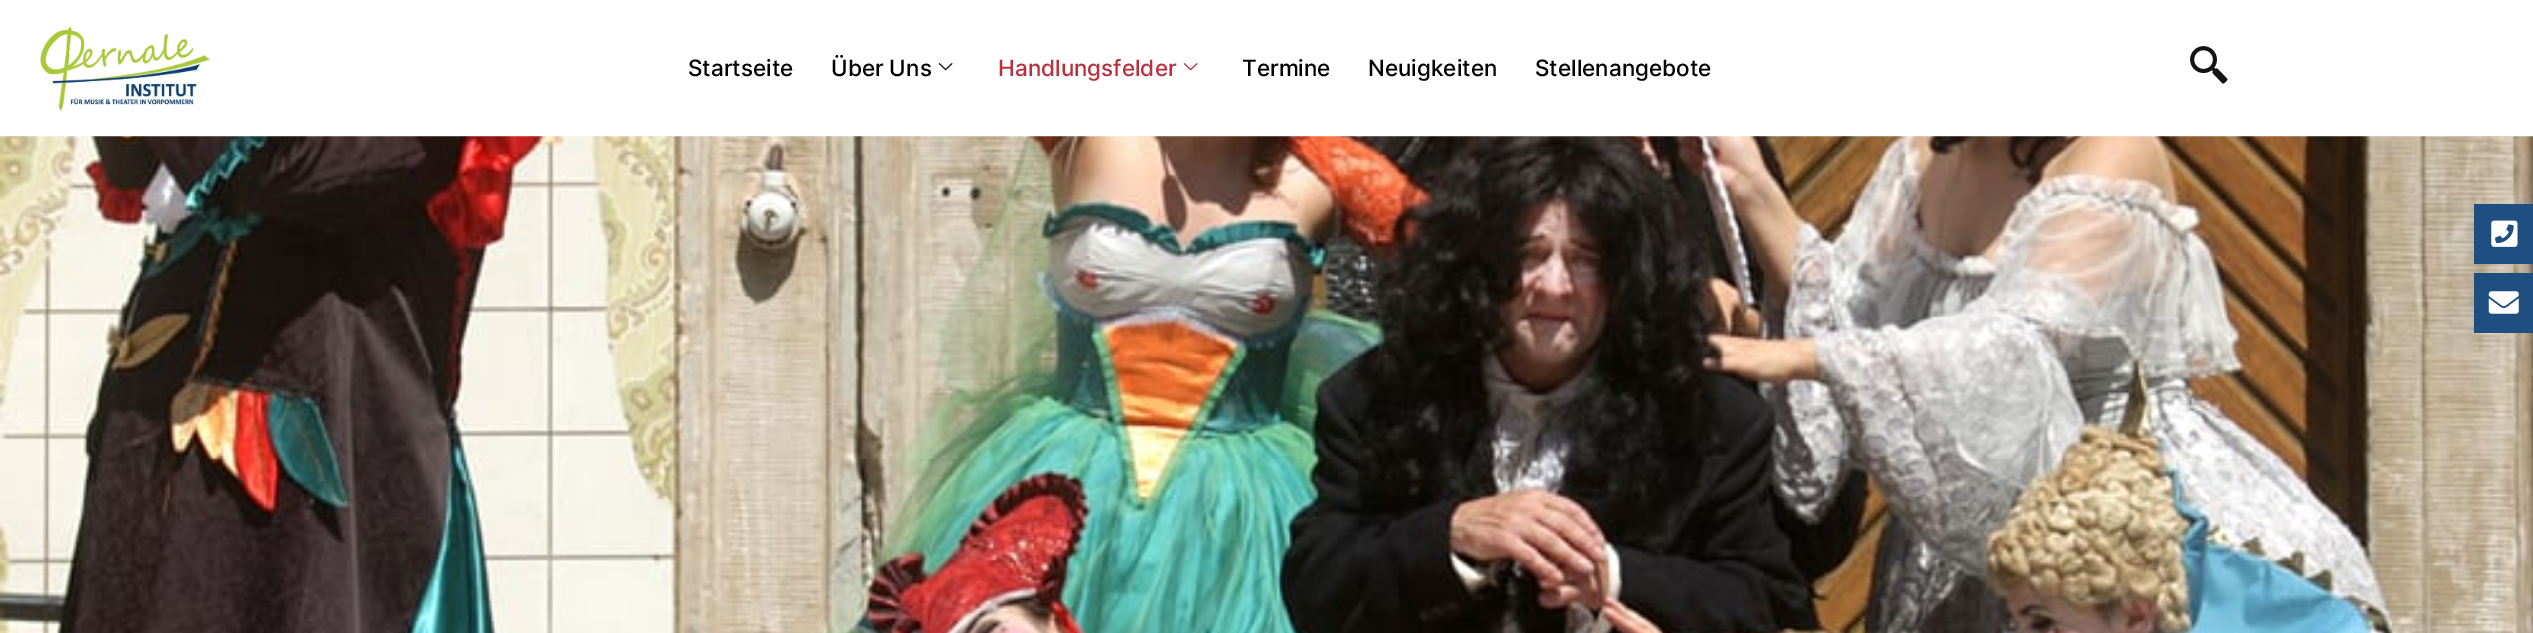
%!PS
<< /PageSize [2533 633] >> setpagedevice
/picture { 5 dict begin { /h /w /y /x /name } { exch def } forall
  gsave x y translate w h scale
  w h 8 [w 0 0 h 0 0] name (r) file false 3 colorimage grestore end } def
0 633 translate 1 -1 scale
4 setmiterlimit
1 setgray
0 0 2533 633 rectfill
(img1.rgb) 40 26 171 85 picture
/Inter-Medium [22.5 0 0 -22.5 0 0] selectfont
0 setgray
688 76 moveto (Startseite) show
831 76 moveto (Über Uns) show
(img2.rgb) 938 63 15 8 picture
0.725 0.188 0.255 setrgbcolor
998 76 moveto (Handlungsfelder) show
(img3.rgb) 1183 63 15 8 picture
0 setgray
1242 76 moveto (Termine) show
1368 76 moveto (Neuigkeiten) show
1535 76 moveto (Stellenangebote) show
(img4.rgb) 2190 46 38 38 picture
(img5.rgb) 0 136 2533 497 picture
0.122 0.306 0.502 setrgbcolor
2474 204 59 60 rectfill
(img6.rgb) 2491 220 27 27 picture
2474 273 59 60 rectfill
(img7.rgb) 2488 291 31 23 picture
showpage
